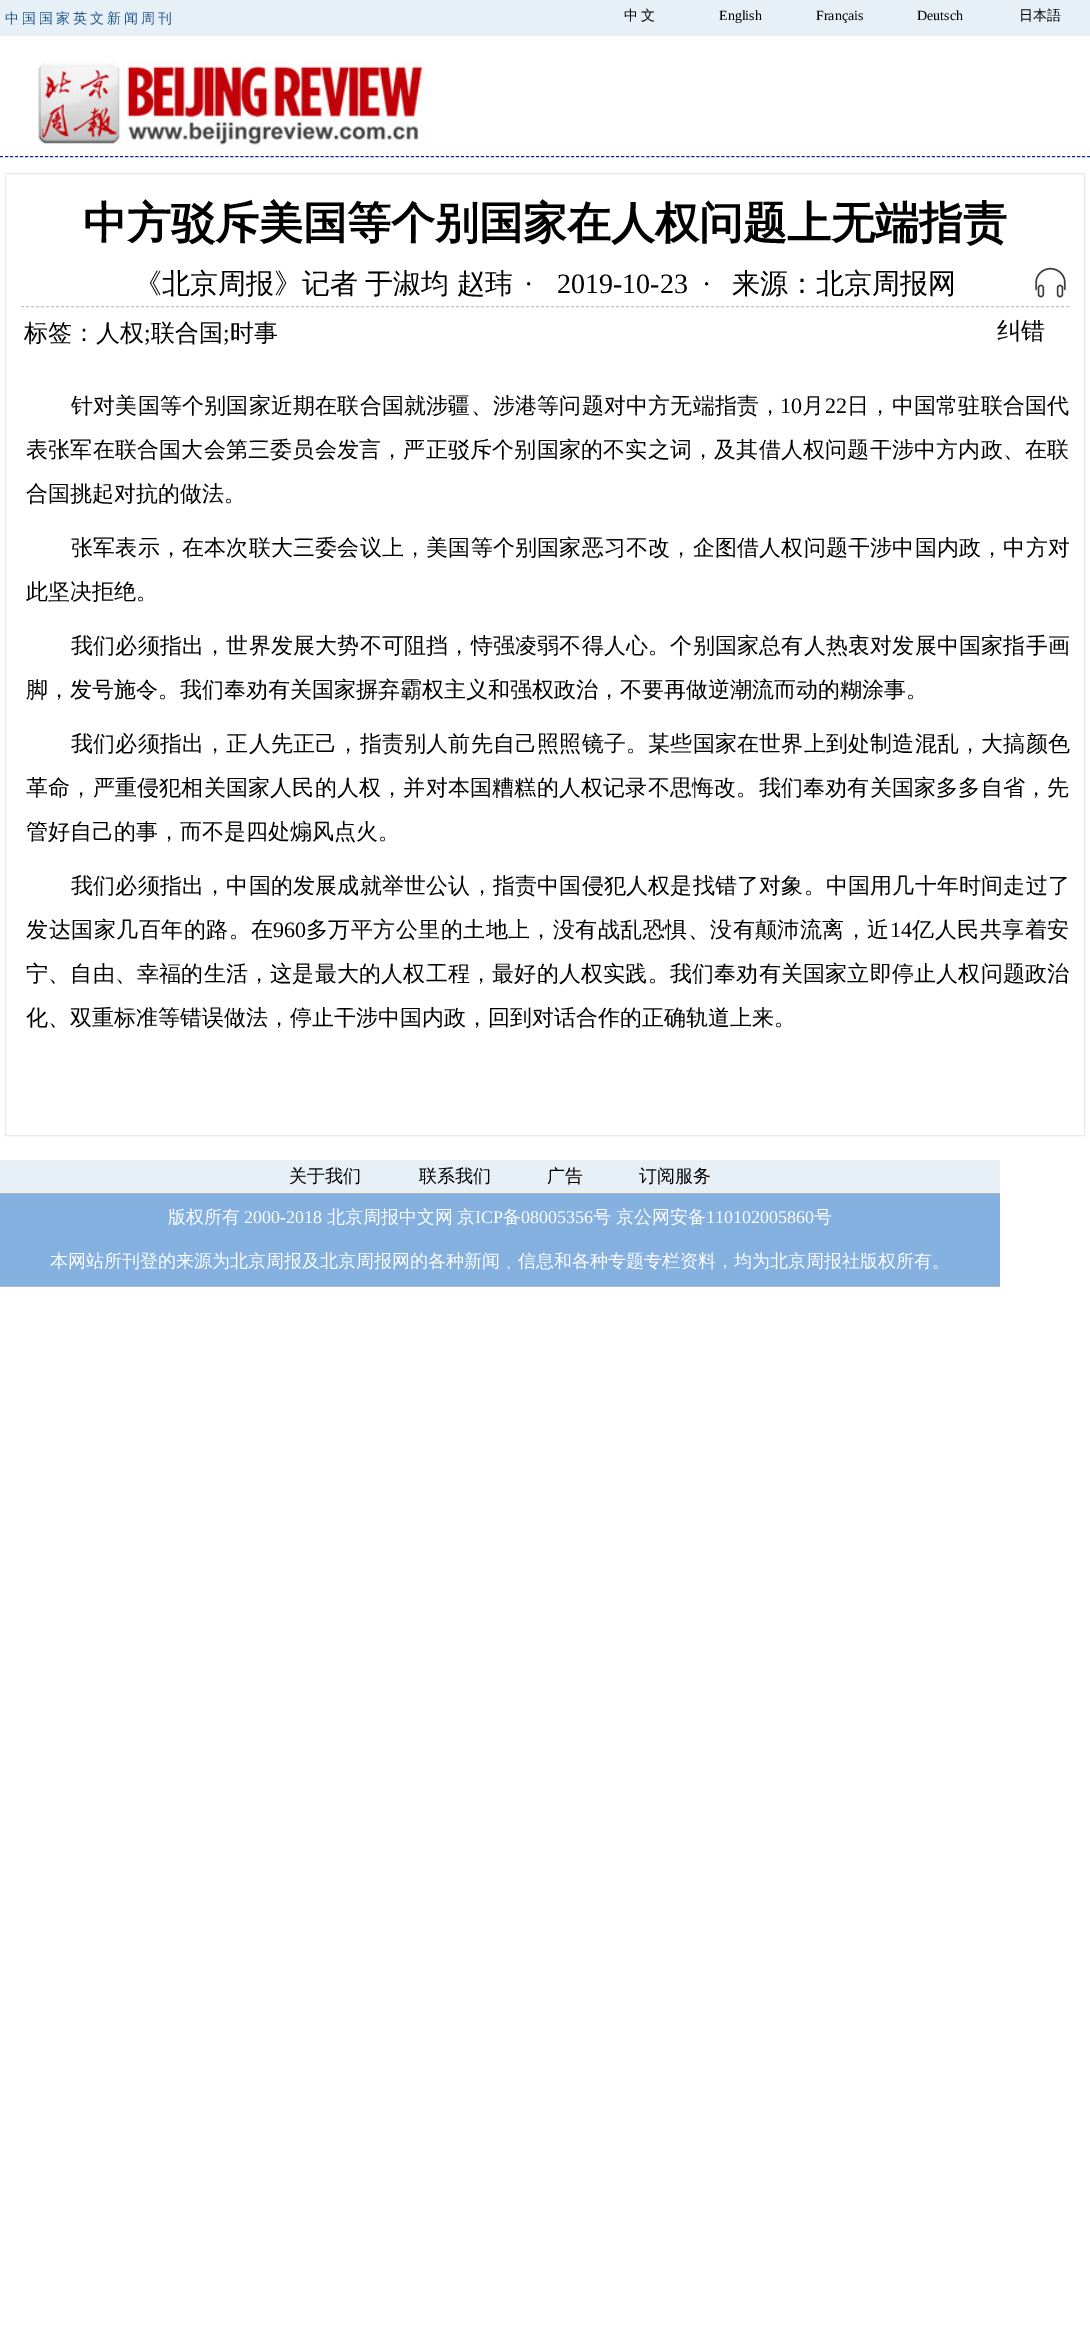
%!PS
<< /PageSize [1090 2346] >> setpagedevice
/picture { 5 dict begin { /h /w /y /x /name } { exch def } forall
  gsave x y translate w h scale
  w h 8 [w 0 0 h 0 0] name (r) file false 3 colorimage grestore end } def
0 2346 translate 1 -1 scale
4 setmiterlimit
1 setgray
0 0 1090 2346 rectfill
0.906 0.937 0.969 setrgbcolor
0 0 1090 36 rectfill
/WenQuanYiZenHei-Medium [14 0 0 -14 0 0] selectfont
0.129 0.349 0.545 setrgbcolor
5 23 moveto 3 0 (中国国家英文新闻周刊) ashow
0 setgray
624 20 moveto -1 0 32 (中 文) widthshow
/LiberationSerif-Regular [14 0 0 -14 0 0] selectfont
719 20 moveto (English) show
816 20 moveto (Français) show
917 20 moveto (Deutsch) show
/WenQuanYiZenHei-Medium [14 0 0 -14 0 0] selectfont
1019 20 moveto (日本語) show
0 0.18 0.596 setrgbcolor
[3 2.01] 0 setdash
newpath 0 156.5 moveto 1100 156.5 lineto stroke
(img1.rgb) 38 58 387 87 picture
0.914 setgray
[] 0 setdash
5.5 173.5 1079 962 rectstroke
/WenQuanYiZenHei-Bold [44 0 0 -44 0 0] selectfont
0 setgray
83 238 moveto (中方驳斥美国等个别国家在人权问题上无端指责) show
(img2.rgb) 1035 267 31 31 picture
0.773 0.769 0.765 setrgbcolor
[3 2] 0 setdash
newpath 21 306.5 moveto 1069 306.5 lineto stroke
/WenQuanYiZenHei-Medium [28 0 0 -28 0 0] selectfont
0 setgray
134 293 moveto -1 0 32 (《北京周报》记者 于淑均 赵玮) widthshow
/LiberationSerif-Regular [28 0 0 -28 0 0] selectfont
524 293 moveto (·) show
557 293 moveto (2019-10-23  ·) show
/WenQuanYiZenHei-Medium [28 0 0 -28 0 0] selectfont
732 293 moveto (来源：北京周报网) show
/WenQuanYiZenHei-Medium [24 0 0 -24 0 0] selectfont
24 341 moveto (标签：人权) show
/LiberationSerif-Regular [24 0 0 -24 0 0] selectfont
144 341 moveto (;) show
/WenQuanYiZenHei-Medium [24 0 0 -24 0 0] selectfont
151 341 moveto (联合国) show
/LiberationSerif-Regular [24 0 0 -24 0 0] selectfont
223 341 moveto (;) show
/WenQuanYiZenHei-Medium [24 0 0 -24 0 0] selectfont
230 341 moveto (时事) show
997 339 moveto (纠错) show
/WenQuanYiZenHei-Medium [22 0 0 -22 0 0] selectfont
71 413 moveto 0.2 0 (针对美国等个别国家近期在联合国就涉疆、涉港等问题对中方无端指责，) ashow
/LiberationSerif-Regular [22 0 0 -22 0 0] selectfont
780 413 moveto (10) show
/WenQuanYiZenHei-Medium [22 0 0 -22 0 0] selectfont
802 413 moveto (月) show
/LiberationSerif-Regular [22 0 0 -22 0 0] selectfont
825 413 moveto (22) show
/WenQuanYiZenHei-Medium [22 0 0 -22 0 0] selectfont
847 413 moveto 0.25 0 (日，中国常驻联合国代) ashow
26 457 moveto 0.2 0 (表张军在联合国大会第三委员会发言，严正驳斥个别国家的不实之词，及其借人权问题干涉中方内政、在联) ashow
26 501 moveto (合国挑起对抗的做法。) show
71 555 moveto 0.2 0 (张军表示，在本次联大三委会议上，美国等个别国家恶习不改，企图借人权问题干涉中国内政，中方对) ashow
26 599 moveto (此坚决拒绝。) show
71 653 moveto 0.2 0 (我们必须指出，世界发展大势不可阻挡，恃强凌弱不得人心。个别国家总有人热衷对发展中国家指手画) ashow
26 697 moveto (脚，发号施令。我们奉劝有关国家摒弃霸权主义和强权政治，不要再做逆潮流而动的糊涂事。) show
71 751 moveto 0.2 0 (我们必须指出，正人先正己，指责别人前先自己照照镜子。某些国家在世界上到处制造混乱，大搞颜色) ashow
26 795 moveto 0.2 0 (革命，严重侵犯相关国家人民的人权，并对本国糟糕的人权记录不思悔改。我们奉劝有关国家多多自省，先) ashow
26 839 moveto (管好自己的事，而不是四处煽风点火。) show
71 893 moveto 0.2 0 (我们必须指出，中国的发展成就举世公认，指责中国侵犯人权是找错了对象。中国用几十年时间走过了) ashow
26 937 moveto 0.5 0 (发达国家几百年的路。在) ashow
/LiberationSerif-Regular [22 0 0 -22 0 0] selectfont
273 937 moveto (960) show
/WenQuanYiZenHei-Medium [22 0 0 -22 0 0] selectfont
306 937 moveto 0.45 0 (多万平方公里的土地上，没有战乱恐惧、没有颠沛流离，近) ashow
/LiberationSerif-Regular [22 0 0 -22 0 0] selectfont
890 937 moveto (14) show
/WenQuanYiZenHei-Medium [22 0 0 -22 0 0] selectfont
912 937 moveto 0.5 0 (亿人民共享着安) ashow
26 981 moveto 0.2 0 (宁、自由、幸福的生活，这是最大的人权工程，最好的人权实践。我们奉劝有关国家立即停止人权问题政治) ashow
26 1025 moveto (化、双重标准等错误做法，停止干涉中国内政，回到对话合作的正确轨道上来。) show
0.906 0.937 0.969 setrgbcolor
0 1160 1000 33 rectfill
/WenQuanYiZenHei-Medium [18 0 0 -18 0 0] selectfont
0 setgray
289 1182 moveto (关于我们) show
419 1182 moveto (联系我们) show
547 1182 moveto (广告) show
639 1182 moveto (订阅服务) show
0.522 0.694 0.878 setrgbcolor
0 1194 1000 92 rectfill
0.71 setgray
0 1193 1000 1 rectfill
0 1286 1000 1 rectfill
1 setgray
168 1223 moveto (版权所有) show
/LiberationSerif-Regular [18 0 0 -18 0 0] selectfont
244 1223 moveto (2000-2018) show
/WenQuanYiZenHei-Medium [18 0 0 -18 0 0] selectfont
327 1223 moveto (北京周报中文网) show
457 1223 moveto (京) show
/LiberationSerif-Regular [18 0 0 -18 0 0] selectfont
475 1223 moveto (ICP) show
/WenQuanYiZenHei-Medium [18 0 0 -18 0 0] selectfont
503 1223 moveto (备) show
/LiberationSerif-Regular [18 0 0 -18 0 0] selectfont
521 1223 moveto (08005356) show
/WenQuanYiZenHei-Medium [18 0 0 -18 0 0] selectfont
593 1223 moveto (号) show
616 1223 moveto (京公网安备) show
/LiberationSerif-Regular [18 0 0 -18 0 0] selectfont
706 1223 moveto (110102005860) show
/WenQuanYiZenHei-Medium [18 0 0 -18 0 0] selectfont
814 1223 moveto (号) show
50 1267 moveto (本网站所刊登的来源为北京周报及北京周报网的各种新闻﹑信息和各种专题专栏资料，均为北京周报社版权所有。) show
showpage
